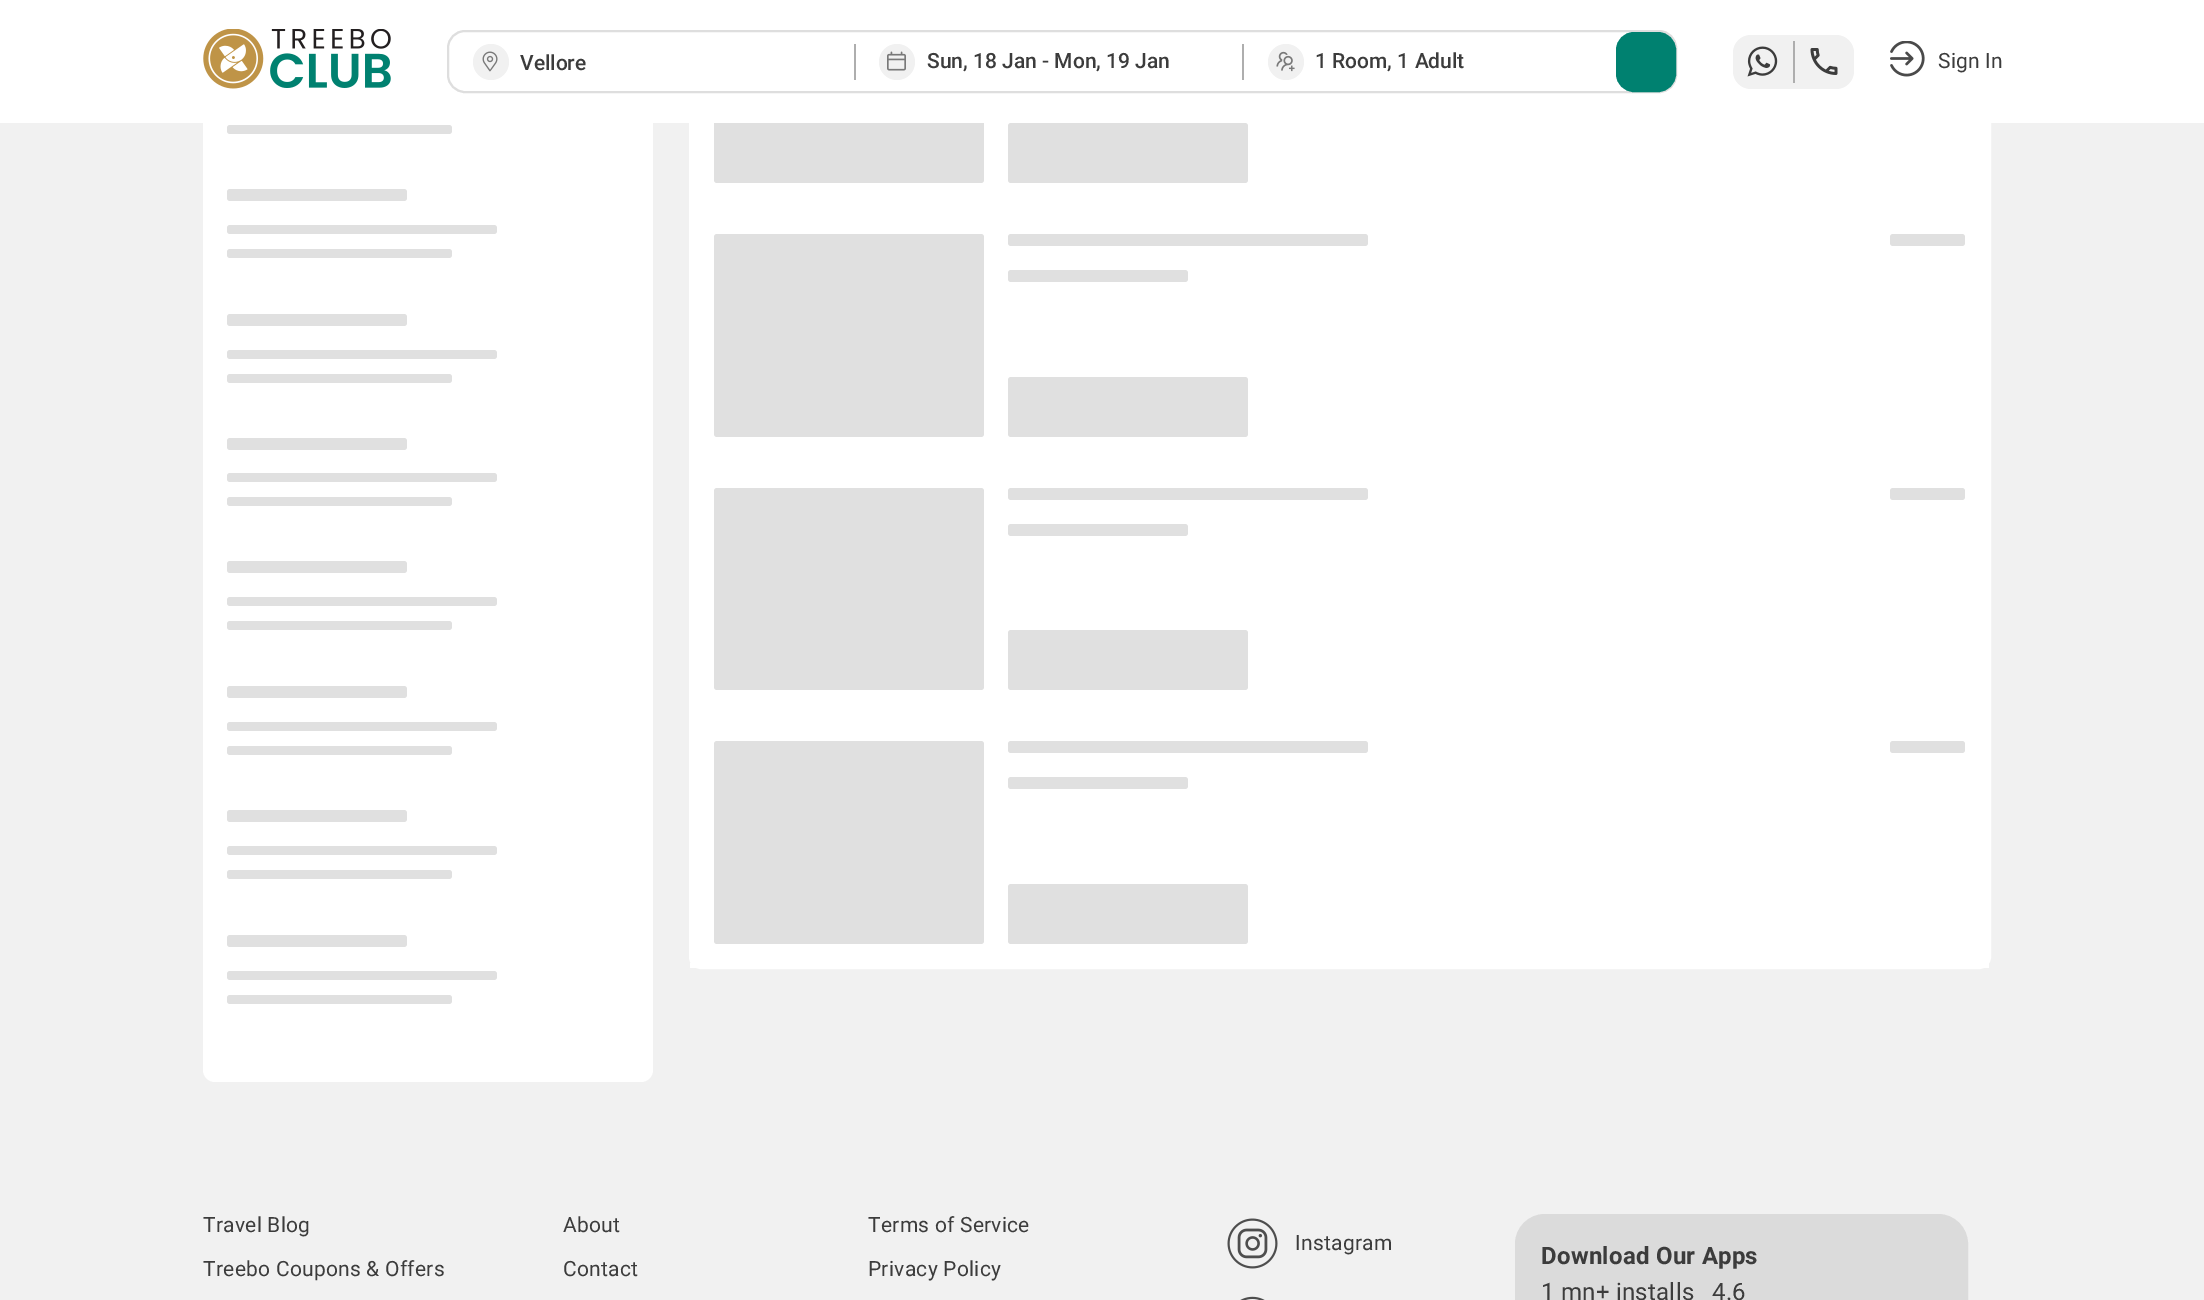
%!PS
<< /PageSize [2204 1300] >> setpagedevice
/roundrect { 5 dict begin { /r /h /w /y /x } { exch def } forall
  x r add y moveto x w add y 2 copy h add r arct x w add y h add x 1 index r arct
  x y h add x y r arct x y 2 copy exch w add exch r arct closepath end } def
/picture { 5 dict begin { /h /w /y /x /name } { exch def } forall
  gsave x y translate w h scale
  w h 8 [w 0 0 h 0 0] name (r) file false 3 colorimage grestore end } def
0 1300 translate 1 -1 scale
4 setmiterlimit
0.945 setgray
0 0 2204 1300 rectfill
1 setgray
203 -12 450 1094 12 roundrect fill
0.878 setgray
227 125 225 9 3 roundrect fill
227 189 180 12 3 roundrect fill
227 225 270 9 3 roundrect fill
227 249 225 9 3 roundrect fill
227 314 180 12 3 roundrect fill
227 350 270 9 3 roundrect fill
227 374 225 9 3 roundrect fill
227 438 180 12 3 roundrect fill
227 473 270 9 3 roundrect fill
227 497 225 9 3 roundrect fill
227 561 180 12 3 roundrect fill
227 597 270 9 3 roundrect fill
227 621 225 9 3 roundrect fill
227 686 180 12 3 roundrect fill
227 722 270 9 3 roundrect fill
227 746 225 9 3 roundrect fill
227 810 180 12 3 roundrect fill
227 846 270 9 3 roundrect fill
227 870 225 9 3 roundrect fill
227 935 180 12 3 roundrect fill
227 971 270 9 3 roundrect fill
227 995 225 9 3 roundrect fill
1 setgray
690 -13 1300 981 11 roundrect gsave fill grestore
2 setlinewidth
stroke
0.878 setgray
714 -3 270 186 3 roundrect fill
1008 123 240 60 3 roundrect fill
714 234 270 203 3 roundrect fill
1008 234 360 12 3 roundrect fill
1008 270 180 12 3 roundrect fill
1890 234 75 12 3 roundrect fill
1008 377 240 60 3 roundrect fill
714 488 270 202 3 roundrect fill
1008 488 360 12 3 roundrect fill
1008 524 180 12 3 roundrect fill
1890 488 75 12 3 roundrect fill
1008 630 240 60 3 roundrect fill
1 setgray
690 963 1299 5 rectfill
0.878 setgray
714 741 270 203 3 roundrect fill
1008 741 360 12 3 roundrect fill
1008 777 180 12 3 roundrect fill
1890 741 75 12 3 roundrect fill
1008 884 240 60 3 roundrect fill
1 setgray
0 0 2204 123 rectfill
(img1.rgb) 203 29 188 60 picture
0.871 setgray
448 31 1228 61 17 roundrect stroke
0.945 setgray
newpath 491 62 18 0 360 arc closepath fill
(img2.rgb) 482 51 16 21 picture
/Roboto-Medium [21 0 0 -21 0 0] selectfont
0.235 setgray
520 70 moveto (Vellore) show
0.682 setgray
854 44 2 36 rectfill
0.945 setgray
newpath 897 62 18 0 360 arc closepath fill
(img3.rgb) 887 51 19 20 picture
0.235 setgray
927 68 moveto (Sun, 18 Jan - Mon, 19 Jan) show
0.682 setgray
1242 44 2 36 rectfill
0.945 setgray
newpath 1286 62 18 0 360 arc closepath fill
(img4.rgb) 1276 51 19 21 picture
0.235 setgray
1315 68 moveto (1 Room, 1 Adult) show
0 0.506 0.439 setrgbcolor
1617 33 58 58 17 roundrect gsave fill grestore
stroke
0.945 setgray
1733 35 121 54 18 roundrect fill
(img5.rgb) 1747 46 31 31 picture
0.682 setgray
1793 41 2 42 rectfill
(img6.rgb) 1810 48 28 27 picture
(img7.rgb) 1890 41 35 36 picture
/Roboto-Regular [21 0 0 -21 0 0] selectfont
0.235 setgray
1938 68 moveto 0.25 0 (Sign In) ashow
203 1232 moveto 0.25 0 (Travel Blog) ashow
203 1276 moveto 0.25 0 (Treebo Coupons & Offers) ashow
563 1232 moveto 0.25 0 (About) ashow
563 1276 moveto 0.25 0 (Contact) ashow
868 1232 moveto 0.25 0 (Terms of Service) ashow
868 1276 moveto 0.25 0 (Privacy Policy) ashow
(img8.rgb) 1227 1218 51 51 picture
1295 1250 moveto 0.25 0 (Instagram) ashow
(img9.rgb) 1240 1296 25 4 picture
0.859 setgray
1516 1215 451 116 29 roundrect gsave fill grestore
stroke
/Roboto-Bold [24 0 0 -24 0 0] selectfont
0.235 setgray
1541 1264 moveto 0.25 0 (Download Our Apps) ashow
/Roboto-Regular [24 0 0 -24 0 0] selectfont
1541 1300 moveto 0.25 0 (1 mn+ installs) ashow
1712 1300 moveto 0.25 0 (4.6) ashow
showpage
